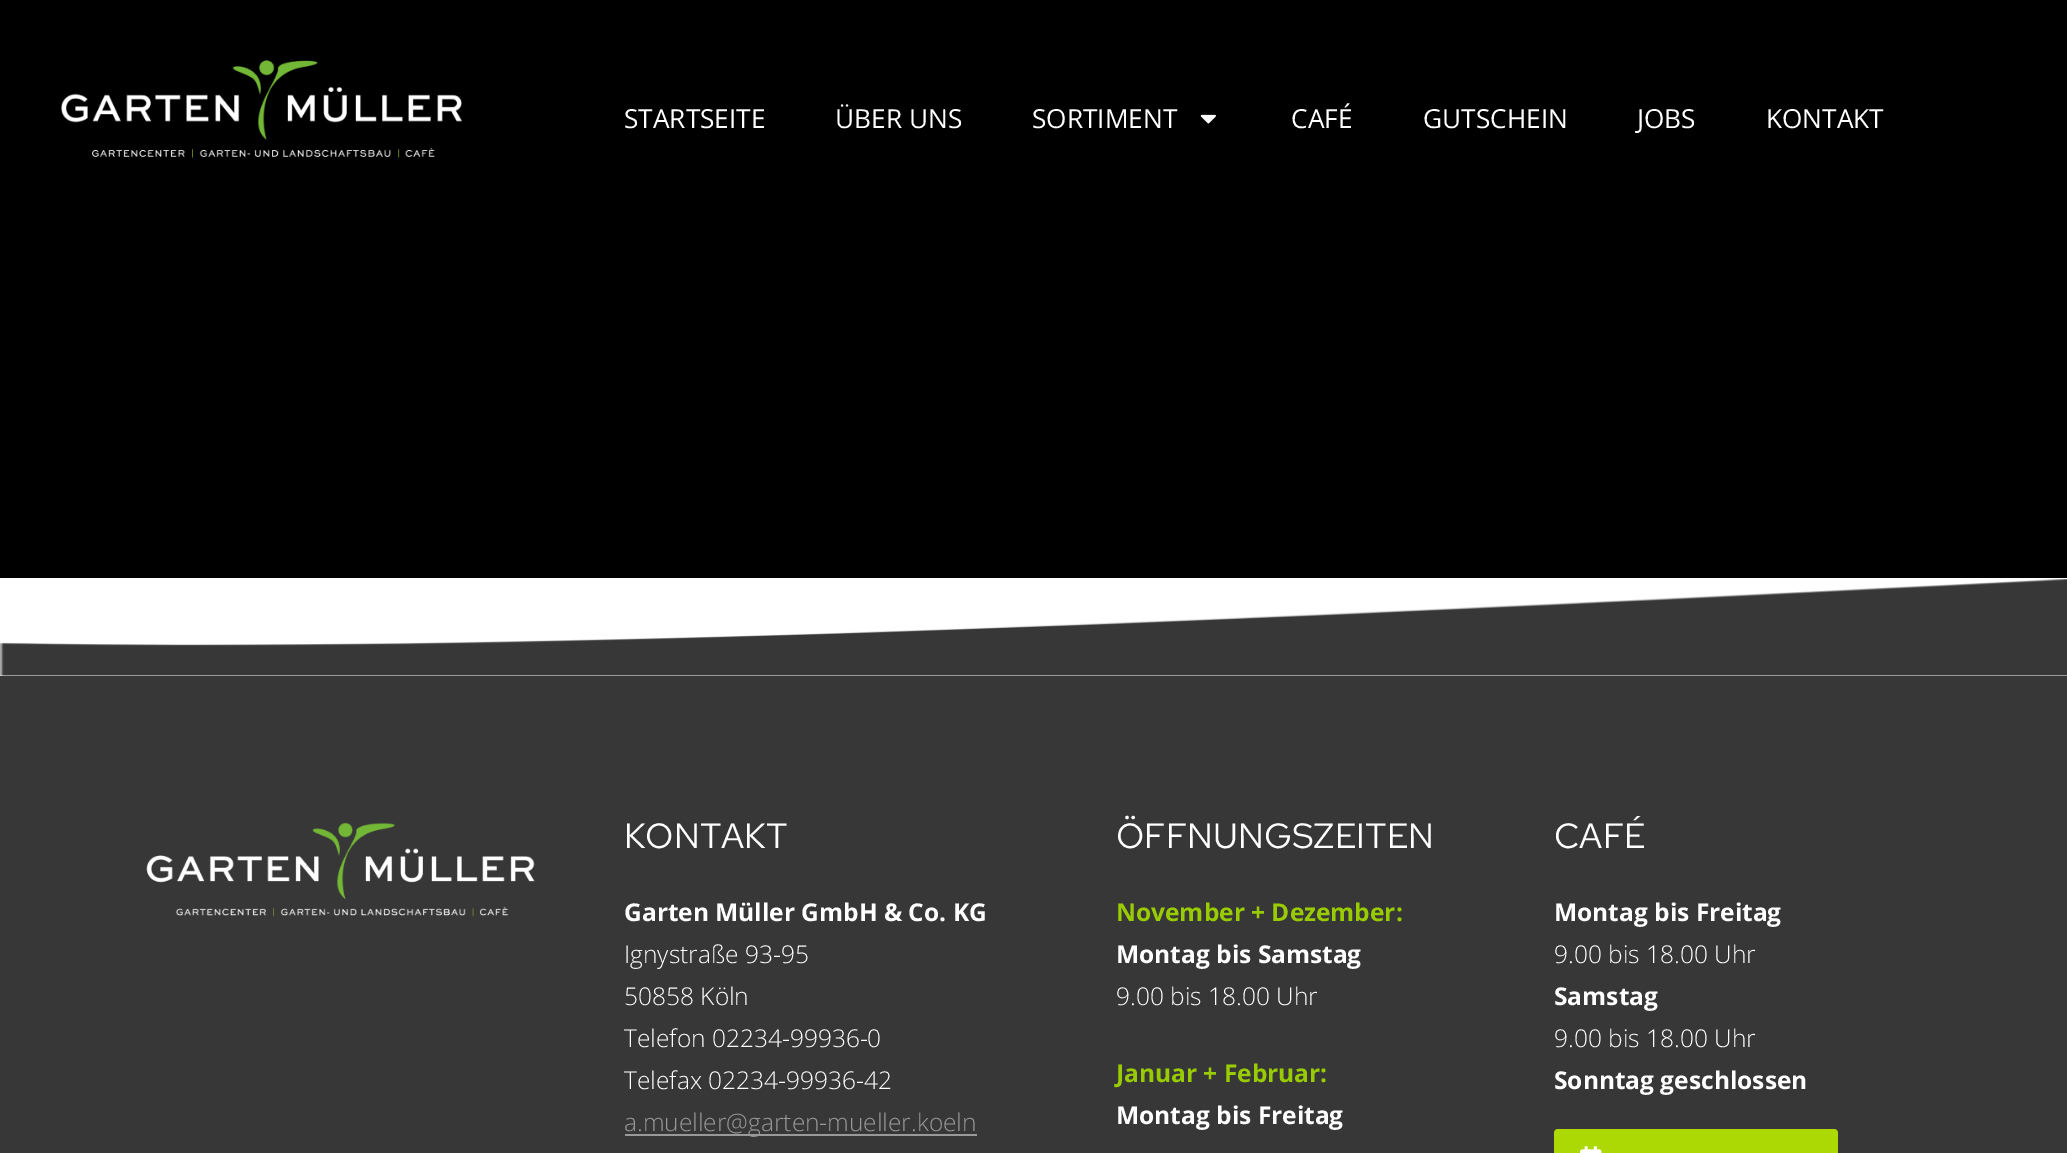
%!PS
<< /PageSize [2067 1153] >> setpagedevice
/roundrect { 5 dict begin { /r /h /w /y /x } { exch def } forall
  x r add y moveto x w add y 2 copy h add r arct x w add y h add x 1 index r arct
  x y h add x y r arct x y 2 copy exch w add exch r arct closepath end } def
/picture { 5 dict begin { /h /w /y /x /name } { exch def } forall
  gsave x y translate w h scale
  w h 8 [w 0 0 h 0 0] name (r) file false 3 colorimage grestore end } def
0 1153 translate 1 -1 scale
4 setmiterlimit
1 setgray
0 0 2067 1153 rectfill
0 setgray
0 0 2067 578 rectfill
(img1.rgb) 61 60 401 98 picture
/OpenSans-Regular [26.25 0 0 -26.25 0 0] selectfont
1 setgray
624 128 moveto (STARTSEITE) show
835 128 moveto (ÜBER UNS) show
1032 128 moveto (SORTIMENT) show
(img2.rgb) 1200 114 16 10 picture
1291 128 moveto (CAFÉ) show
1423 128 moveto (GUTSCHEIN) show
1637 128 moveto (JOBS) show
1766 128 moveto (KONTAKT) show
(img3.rgb) 0 579 2067 97 picture
0.216 setgray
0 676 2067 477 rectfill
(img4.rgb) 146 822 389 95 picture
/RedHatText-Regular [35 0 0 -35 0 0] selectfont
1 setgray
624 848 moveto (KONTAKT) show
/OpenSans-Bold [24.5 0 0 -24.5 0 0] selectfont
624 921 moveto (Garten Müller GmbH & Co. KG) show
/OpenSans-Light [24.5 0 0 -24.5 0 0] selectfont
624 963 moveto (Ignystraße 93-95) show
624 1005 moveto (50858 Köln) show
624 1047 moveto (Telefon 02234-99936-0) show
624 1089 moveto (Telefax 02234-99936-42) show
0.6 setgray
625 1134 352 2 rectfill
624 1131 moveto (a.mueller@garten-mueller.koeln) show
/RedHatText-Regular [35 0 0 -35 0 0] selectfont
1 setgray
1116 848 moveto (ÖFFNUNGSZEITEN) show
/OpenSans-Bold [24.5 0 0 -24.5 0 0] selectfont
0.6 0.8 0 setrgbcolor
1116 921 moveto (November + Dezember:) show
1 setgray
1116 963 moveto (Montag bis Samstag) show
/OpenSans-Light [24.5 0 0 -24.5 0 0] selectfont
1116 1005 moveto (9.00 bis 18.00 Uhr) show
/OpenSans-Bold [24.5 0 0 -24.5 0 0] selectfont
0.6 0.8 0 setrgbcolor
1116 1082 moveto (Januar + Februar:) show
1 setgray
1116 1124 moveto (Montag bis Freitag) show
/RedHatText-Regular [35 0 0 -35 0 0] selectfont
1554 848 moveto (CAFÉ) show
/OpenSans-Bold [24.5 0 0 -24.5 0 0] selectfont
1554 921 moveto (Montag bis Freitag) show
/OpenSans-Light [24.5 0 0 -24.5 0 0] selectfont
1554 963 moveto (9.00 bis 18.00 Uhr) show
/OpenSans-Bold [24.5 0 0 -24.5 0 0] selectfont
1554 1005 moveto (Samstag) show
/OpenSans-Light [24.5 0 0 -24.5 0 0] selectfont
1554 1047 moveto (9.00 bis 18.00 Uhr) show
/OpenSans-Bold [24.5 0 0 -24.5 0 0] selectfont
1554 1089 moveto (Sonntag geschlossen) show
0.675 0.851 0.012 setrgbcolor
1554 1129 284 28 4 roundrect fill
(img5.rgb) 1580 1146 22 7 picture
showpage
